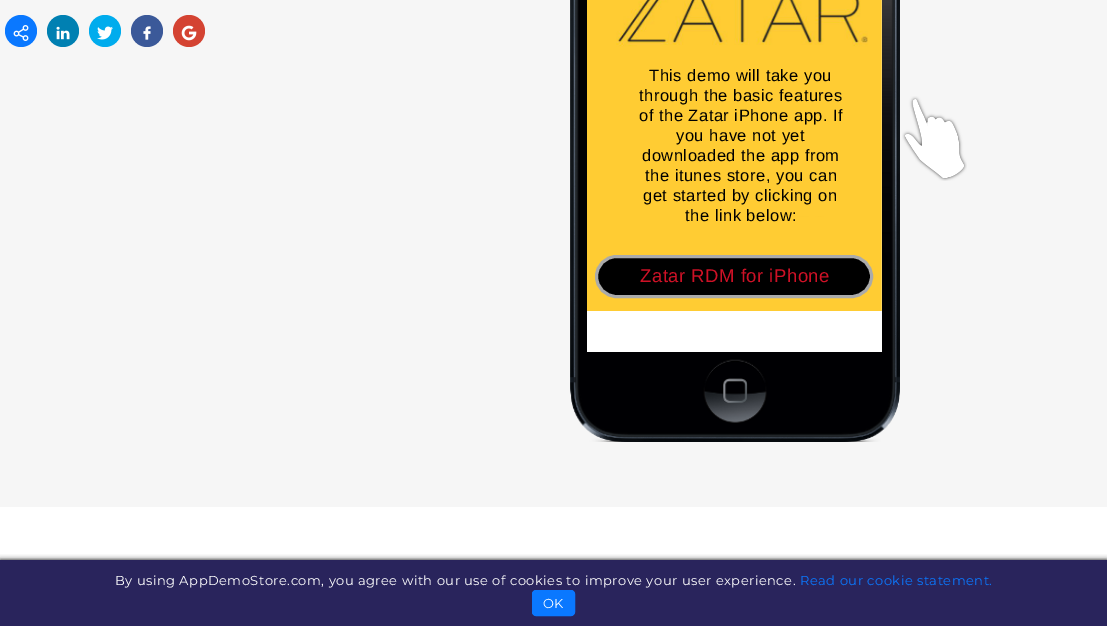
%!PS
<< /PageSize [1107 626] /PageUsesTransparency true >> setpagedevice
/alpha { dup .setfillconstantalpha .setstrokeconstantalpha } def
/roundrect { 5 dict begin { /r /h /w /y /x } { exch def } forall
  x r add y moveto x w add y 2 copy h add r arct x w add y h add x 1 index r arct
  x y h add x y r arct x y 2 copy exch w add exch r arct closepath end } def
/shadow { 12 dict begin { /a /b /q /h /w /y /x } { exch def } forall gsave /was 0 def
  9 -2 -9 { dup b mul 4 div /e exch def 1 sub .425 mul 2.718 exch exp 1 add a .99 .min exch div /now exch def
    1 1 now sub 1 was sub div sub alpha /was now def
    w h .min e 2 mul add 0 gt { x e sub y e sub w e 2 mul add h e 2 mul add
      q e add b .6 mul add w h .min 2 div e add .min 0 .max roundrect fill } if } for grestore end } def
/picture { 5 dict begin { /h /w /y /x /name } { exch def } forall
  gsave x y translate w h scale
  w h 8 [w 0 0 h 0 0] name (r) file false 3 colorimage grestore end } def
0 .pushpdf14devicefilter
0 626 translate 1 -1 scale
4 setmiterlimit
0.965 setgray
0 0 1107 626 rectfill
0.039 0.471 1 setrgbcolor
newpath 21 31 16 0 360 arc closepath fill
(img1.rgb) 13 25 16 16 picture
0 0.502 0.698 setrgbcolor
newpath 63 31 16 0 360 arc closepath fill
(img2.rgb) 56 26 14 14 picture
0 0.675 0.929 setrgbcolor
newpath 105 31 16 0 360 arc closepath fill
(img3.rgb) 97 26 16 14 picture
0.231 0.349 0.6 setrgbcolor
newpath 147 31 16 0 360 arc closepath fill
(img4.rgb) 143 26 8 14 picture
0.831 0.263 0.196 setrgbcolor
newpath 189 31 16 0 360 arc closepath fill
(img5.rgb) 181 25 16 16 picture
(img6.rgb) 570 0 330 442 picture
1 setgray
587 0 295 352 rectfill
(img7.rgb) 587 0 295 311 picture
1 0.8 0.2 setrgbcolor
637 45 194 171 rectfill
/LiberationSans-Regular [16.5 0 0 -16.5 0 0] selectfont
0 setgray
649 81 moveto 0.5 0 (This demo will take you) ashow
639 101 moveto 0.5 0 (through the basic features) ashow
639 121 moveto 0.5 0 (of the Zatar iPhone app. If) ashow
676 141 moveto 0.5 0 (you have not yet) ashow
642 161 moveto 0.5 0 (downloaded the app from) ashow
645 181 moveto 0.5 0 (the itunes store, you can) ashow
643 201 moveto 0.5 0 (get started by clicking on) ashow
685 221 moveto 0.5 0 (the link below:) ashow
596.5 256.5 275 40 20 roundrect gsave fill grestore
0.667 setgray
3 setlinewidth
stroke
/LiberationSans-Regular [18.5 0 0 -18.5 0 0] selectfont
0.808 0.067 0.149 setrgbcolor
640 282 moveto 0.5 0 (Zatar RDM for iPhone) ashow
(img8.rgb) 902 96 65 85 picture
1 setgray
0 507 1107 53 rectfill
0 setgray
0 560 1107 66 0 2.5 1 shadow
0.161 0.141 0.361 setrgbcolor
0 560 1107 66 rectfill
/Montserrat-Thin [13 0 0 -13 0 0] selectfont
1 setgray
115 585 moveto 0.5 0 (By using AppDemoStore.com, you agree with our use of cookies to improve your user experience.) ashow
0.039 0.471 1 setrgbcolor
800 585 moveto 0.5 0 (Read our cookie statement.) ashow
532.5 590.5 42 25 3.5 roundrect gsave fill grestore
1 setlinewidth
stroke
1 setgray
543 608 moveto 0.5 0 (OK) ashow
.poppdf14devicefilter showpage
